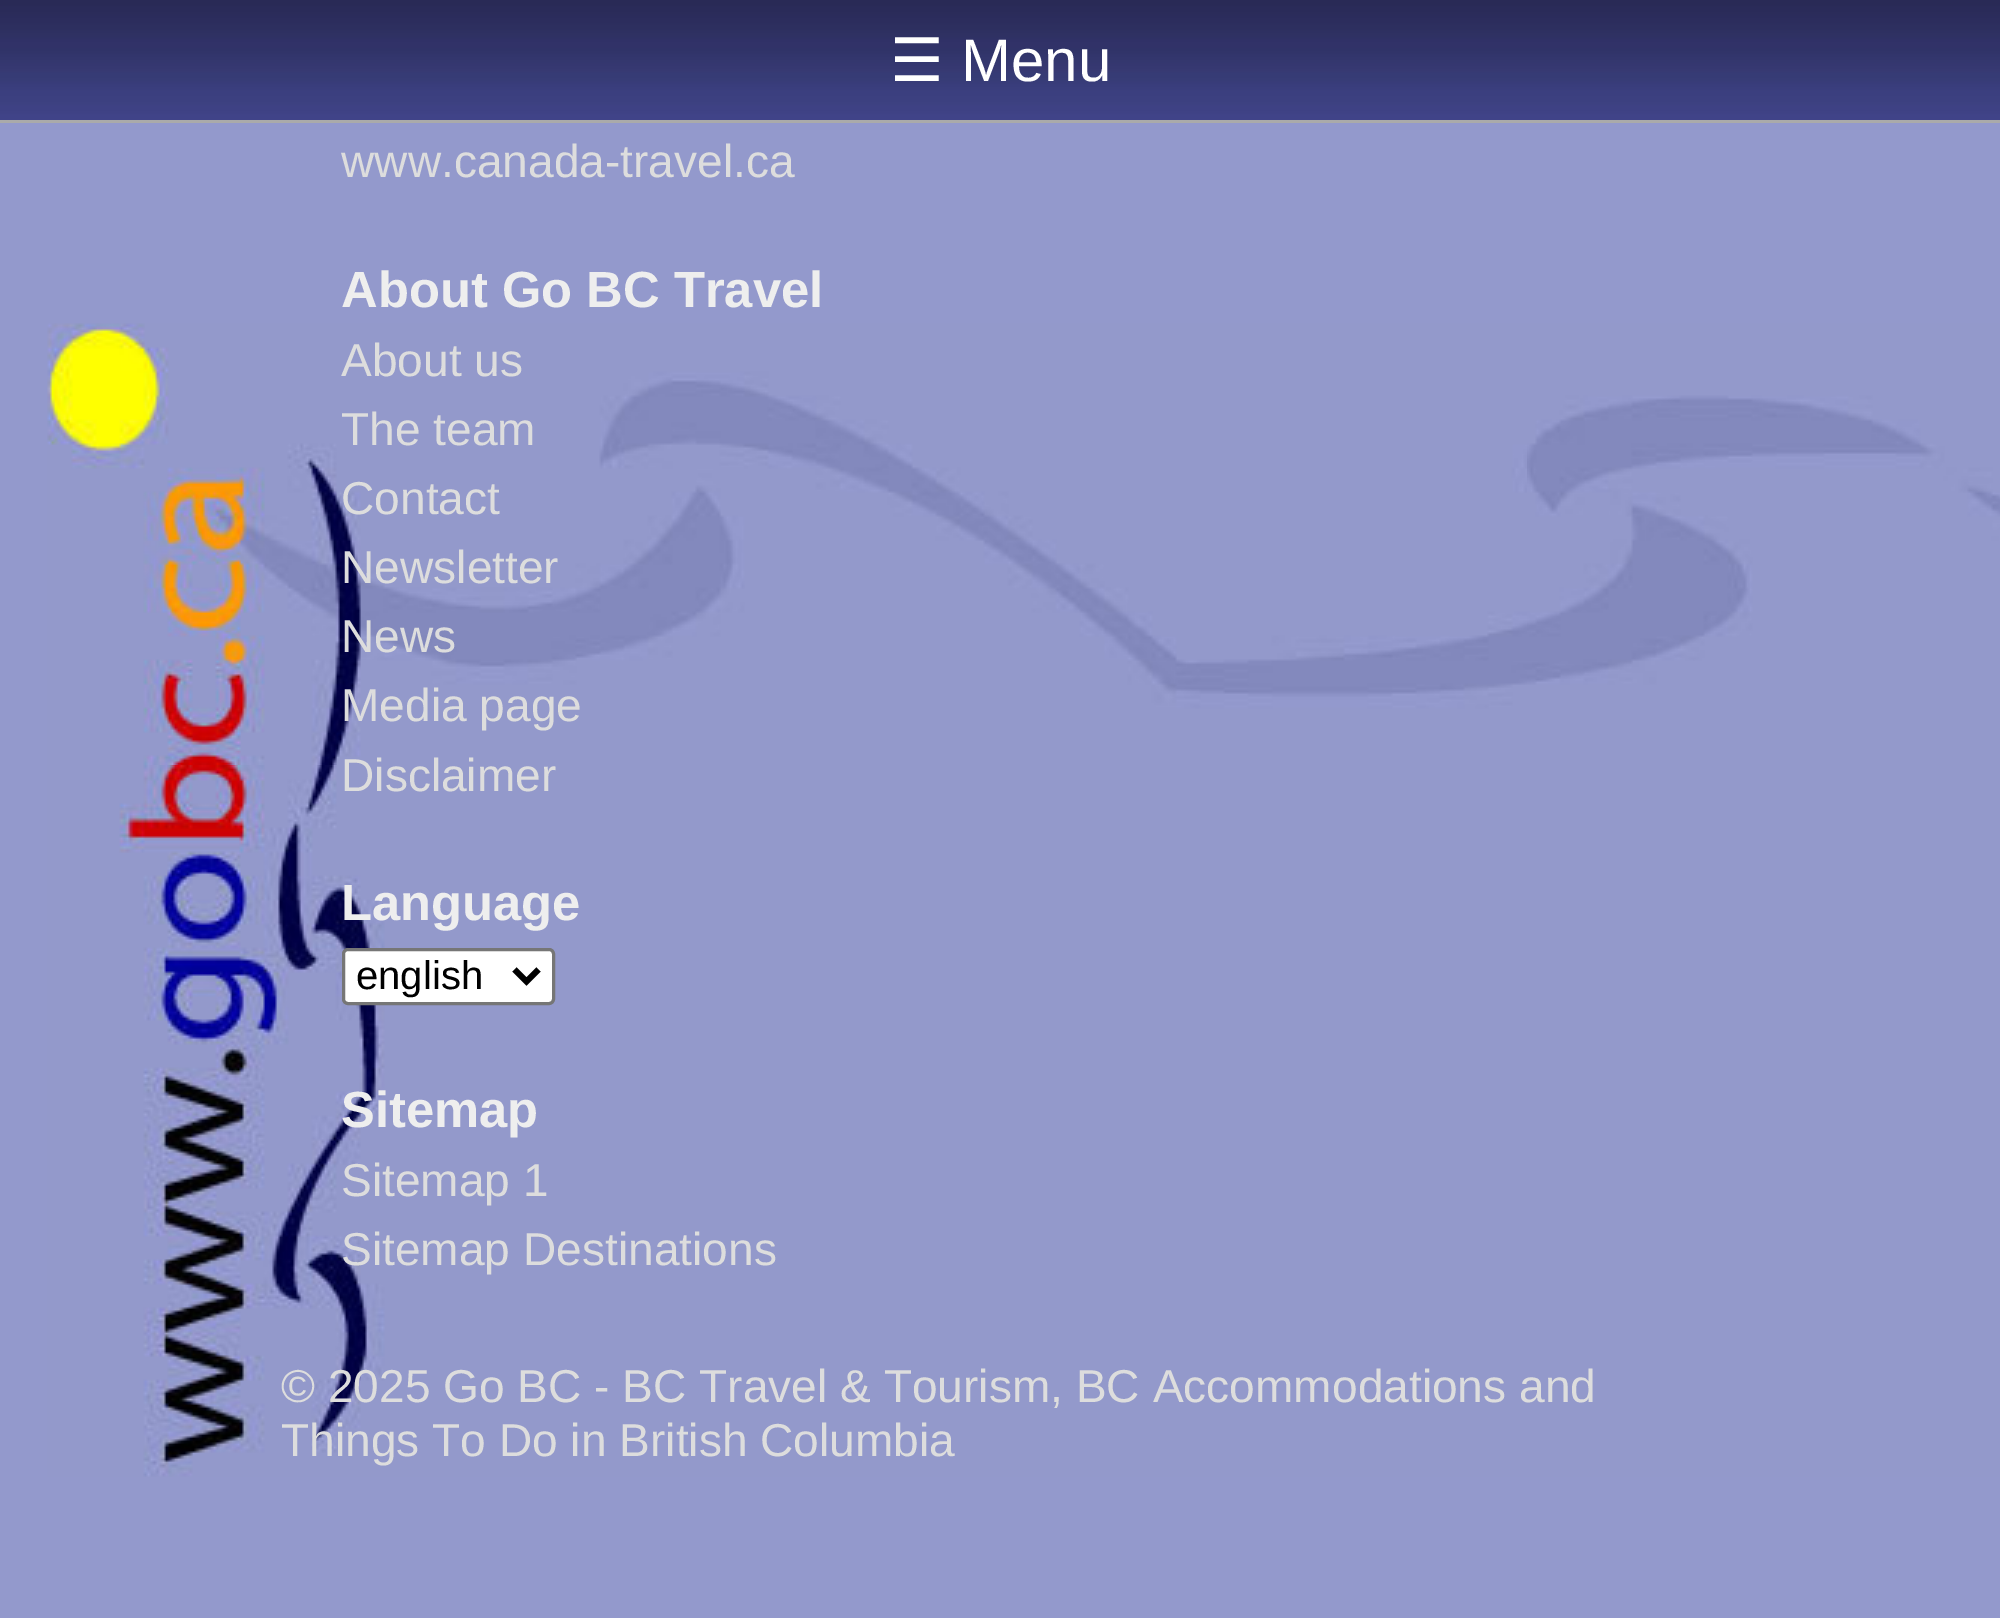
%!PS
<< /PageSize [2000 1618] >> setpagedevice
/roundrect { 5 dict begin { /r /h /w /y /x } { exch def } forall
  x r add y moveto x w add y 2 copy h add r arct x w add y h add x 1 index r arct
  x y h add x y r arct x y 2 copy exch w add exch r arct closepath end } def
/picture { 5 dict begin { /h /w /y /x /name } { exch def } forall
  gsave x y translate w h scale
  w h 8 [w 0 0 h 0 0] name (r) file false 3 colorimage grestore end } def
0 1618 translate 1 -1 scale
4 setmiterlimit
0.576 0.6 0.8 setrgbcolor
0 0 2000 1618 rectfill
(img1.rgb) 47 323 1953 1154 picture
(img2.rgb) 0 0 2000 120 picture
0.667 setgray
0 120 2000 3 rectfill
/DejaVuSans-Regular [60 0 0 -60 0 0] selectfont
1 setgray
890 81 moveto (☰) show
/LiberationSans-Regular [60 0 0 -60 0 0] selectfont
961 81 moveto (Menu) show
/LiberationSans-Regular [46.1 0 0 -46.1 0 0] selectfont
0.867 setgray
341 177 moveto (www.canada-travel.ca) show
/LiberationSans-Bold [50.75 0 0 -50.75 0 0] selectfont
0.933 setgray
341 307 moveto (About Go BC Travel) show
/LiberationSans-Regular [46.1 0 0 -46.1 0 0] selectfont
0.867 setgray
341 376 moveto (About us) show
341 445 moveto (The team) show
341 514 moveto (Contact) show
341 583 moveto (Newsletter) show
341 652 moveto (News) show
341 721 moveto (Media page) show
341 791 moveto (Disclaimer) show
/LiberationSans-Bold [50.75 0 0 -50.75 0 0] selectfont
0.933 setgray
341 920 moveto (Language) show
1 setgray
343.5 949.5 210 54 4.5 roundrect gsave fill grestore
0.463 setgray
3 setlinewidth
stroke
0 setgray
6 setlinewidth
newpath 514.5 969.5 moveto 526.5 981.5 lineto 538.5 969.5 lineto stroke
/LiberationSans-Regular [40 0 0 -40 0 0] selectfont
356 989 moveto (english) show
/LiberationSans-Bold [50.75 0 0 -50.75 0 0] selectfont
0.933 setgray
341 1127 moveto (Sitemap) show
/LiberationSans-Regular [46.1 0 0 -46.1 0 0] selectfont
0.867 setgray
341 1196 moveto (Sitemap 1) show
341 1265 moveto (Sitemap Destinations) show
281 1402 moveto (© 2025 Go BC - BC Travel & Tourism, BC Accommodations and) show
281 1456 moveto (Things To Do in British Columbia) show
showpage
